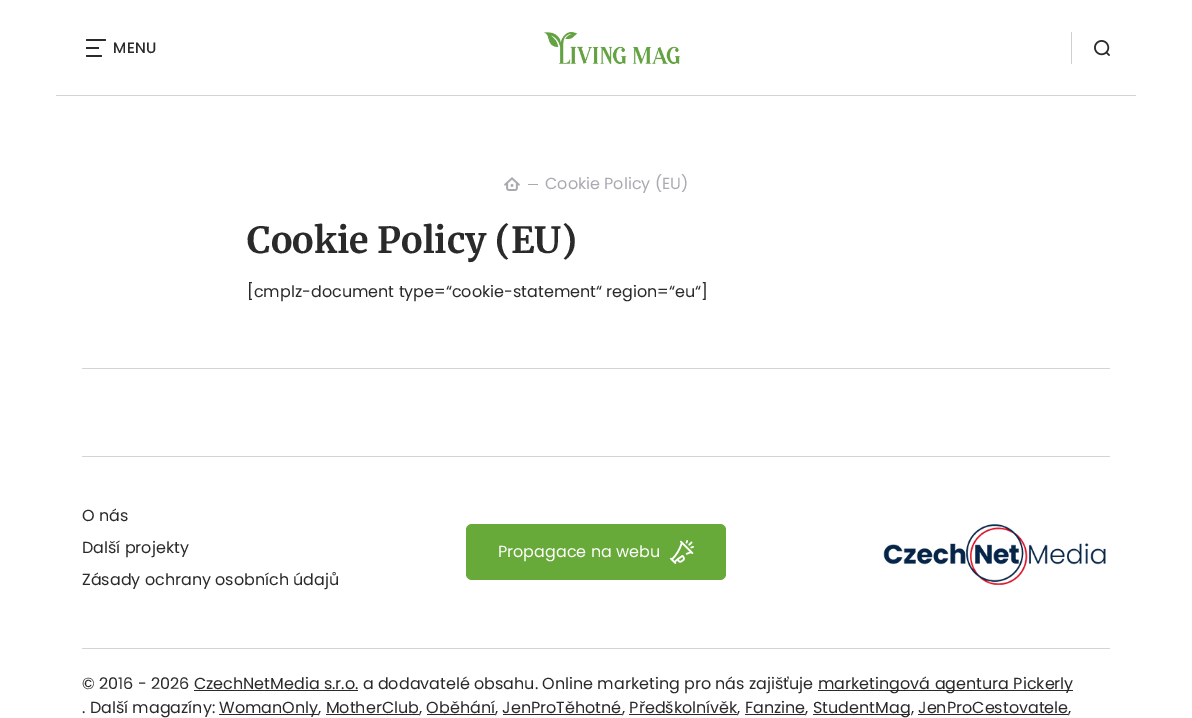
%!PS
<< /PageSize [1192 718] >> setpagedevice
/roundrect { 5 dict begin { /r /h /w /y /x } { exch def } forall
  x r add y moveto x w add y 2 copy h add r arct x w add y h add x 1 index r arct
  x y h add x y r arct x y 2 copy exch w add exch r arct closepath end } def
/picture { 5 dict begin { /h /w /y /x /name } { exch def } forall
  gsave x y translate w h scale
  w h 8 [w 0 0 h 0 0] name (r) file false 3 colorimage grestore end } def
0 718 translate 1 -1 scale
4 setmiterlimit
1 setgray
0 0 1192 718 rectfill
0.165 setgray
86 39 20 2 1 roundrect fill
86 47 13 2 0.5 roundrect fill
/Poppins-Medium [15 0 0 -15 0 0] selectfont
113 53 moveto 0.5 0 (MENU) ashow
86 55 16 2 1 roundrect fill
(img1.rgb) 544 32 136 32 picture
0.808 0.82 0.831 setrgbcolor
1071 32 1 32 rectfill
(img2.rgb) 1094 40 16 16 picture
0.831 setgray
56 95 1080 1 rectfill
(img3.rgb) 504 177 16 14 picture
0.663 0.663 0.698 setrgbcolor
528 184 10 1 rectfill
/Poppins-Regular [16 0 0 -16 0 0] selectfont
545 189 moveto (Cookie Policy \(EU\)) show
/Merriweather-Light [36 0 0 -36 0 0] selectfont
0.165 setgray
247 253 moveto (Cookie Policy \(EU\)) show
/Poppins-Regular [16 0 0 -16 0 0] selectfont
247 297 moveto ([cmplz-document type=“cookie-statement“ region=“eu“]) show
0.831 setgray
82 368 1028 1 rectfill
82 456 1028 1 rectfill
0.165 setgray
82 521 moveto (O nás) show
82 553 moveto (Další projekty) show
82 585 moveto (Zásady ochrany osobních údajů) show
0.404 0.667 0.227 setrgbcolor
466 524 260 56 6 roundrect fill
1 setgray
498 557 moveto (Propagace na webu) show
(img4.rgb) 670 540 24 24 picture
(img5.rgb) 883 524 223 61 picture
0.831 setgray
82 648 1028 1 rectfill
0.165 setgray
82 689 moveto (© 2016 - 2026 CzechNetMedia s.r.o. a dodavatelé obsahu. Online marketing pro nás zajišťuje) show
818 690 255 1 rectfill
818 689 moveto (marketingová agentura Pickerly) show
194 690 164 1 rectfill
82 713 moveto (. Další magazíny:) show
219 714 100 1 rectfill
219 713 moveto (WomanOnly, MotherClub, Oběhání, JenProTěhotné) show
503 714 119 1 rectfill
622 713 moveto (, Předškolnívěk, Fanzine,) show
813 714 97 1 rectfill
813 713 moveto (StudentMag, JenProCestovatele,) show
326 714 93 1 rectfill
427 714 68 1 rectfill
629 714 108 1 rectfill
745 714 60 1 rectfill
918 714 150 1 rectfill
showpage
